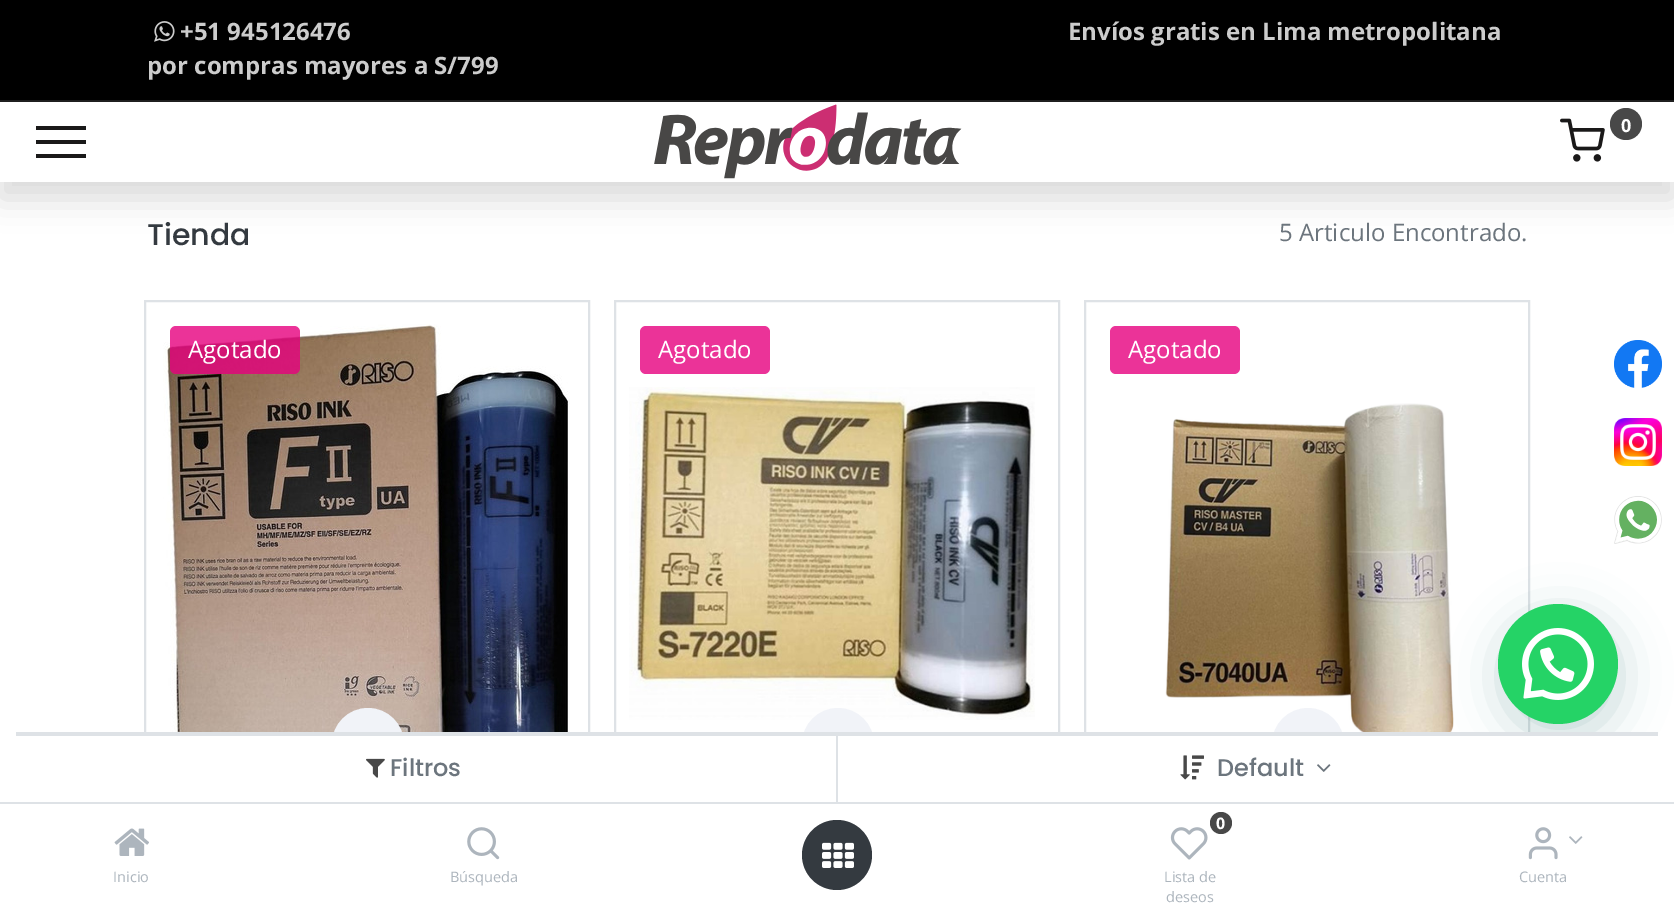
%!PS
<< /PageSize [1674 914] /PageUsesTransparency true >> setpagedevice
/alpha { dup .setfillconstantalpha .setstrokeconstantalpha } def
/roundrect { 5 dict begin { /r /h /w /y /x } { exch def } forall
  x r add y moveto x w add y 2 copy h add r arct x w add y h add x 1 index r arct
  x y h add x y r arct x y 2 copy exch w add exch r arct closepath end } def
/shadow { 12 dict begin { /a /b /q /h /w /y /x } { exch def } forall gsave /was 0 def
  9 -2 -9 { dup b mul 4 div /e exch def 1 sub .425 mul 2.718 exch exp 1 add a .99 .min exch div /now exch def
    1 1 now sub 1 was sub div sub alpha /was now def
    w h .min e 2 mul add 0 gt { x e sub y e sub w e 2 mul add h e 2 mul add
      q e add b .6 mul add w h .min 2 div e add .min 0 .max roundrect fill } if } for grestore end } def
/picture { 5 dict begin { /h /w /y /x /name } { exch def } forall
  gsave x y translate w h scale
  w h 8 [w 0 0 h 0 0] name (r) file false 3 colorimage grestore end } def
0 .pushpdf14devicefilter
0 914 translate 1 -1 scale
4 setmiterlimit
1 setgray
0 0 1674 914 rectfill
0 setgray
0 0 1674 100 rectfill
0.122 setgray
0 100 1674 2 rectfill
(img1.rgb) 154 21 21 21 picture
/OpenSans-Bold [24 0 0 -24 0 0] selectfont
0.8 setgray
180 40 moveto (+51 945126476                                                                                                                   Envíos gratis en Lima metropolitana) show
147 74 moveto (por compras mayores a S/799) show
gsave
newpath 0 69 moveto 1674 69 lineto 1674 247 lineto 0 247 lineto closepath 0 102 moveto 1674 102 lineto 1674 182 lineto 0 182 lineto closepath eoclip newpath
0 setgray
0 118 1674 80 0 16 0.15 shadow
grestore
0.102 0.098 0.098 setrgbcolor
36 126 50 4 rectfill
36 140 50 4 rectfill
36 154 50 4 rectfill
(img2.rgb) 654 104 308 75 picture
(img3.rgb) 1560 118 45 44 picture
0.282 setgray
newpath 1626 124 16 0 360 arc closepath fill
/OpenSans-Bold [18 0 0 -18 0 0] selectfont
1 setgray
1621 132 moveto (0) show
/Poppins-Medium [30 0 0 -30 0 0] selectfont
0.204 0.227 0.251 setrgbcolor
147 245 moveto (Tienda) show
/OpenSans-Regular [24 0 0 -24 0 0] selectfont
0.424 0.459 0.49 setrgbcolor
1279 241 moveto (5 Articulo Encontrado.) show
0.871 0.886 0.902 setrgbcolor
2 setlinewidth
145 301 444 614 rectstroke
(img4.rgb) 163 324 407 408 picture
0.8 alpha
0.902 0 0.494 setrgbcolor
170 326 130 48 6 roundrect fill
1 alpha
1 setgray
188 358 moveto (Agotado) show
0.945 0.953 0.973 setrgbcolor
newpath 368 744 35 0 360 arc closepath gsave fill grestore
stroke
0.871 0.886 0.902 setrgbcolor
615 301 444 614 rectstroke
0.922 0.2 0.596 setrgbcolor
640 326 130 48 6 roundrect fill
1 setgray
658 358 moveto (Agotado) show
(img5.rgb) 629 387 406 333 picture
0.945 0.953 0.973 setrgbcolor
newpath 838 744 35 0 360 arc closepath gsave fill grestore
stroke
0.871 0.886 0.902 setrgbcolor
1085 301 444 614 rectstroke
0.922 0.2 0.596 setrgbcolor
1110 326 130 48 6 roundrect fill
1 setgray
1128 358 moveto (Agotado) show
(img6.rgb) 1165 403 289 329 picture
0.945 0.953 0.973 setrgbcolor
newpath 1308 744 35 0 360 arc closepath gsave fill grestore
stroke
(img7.rgb) 1614 340 48 48 picture
(img8.rgb) 1614 418 48 48 picture
(img9.rgb) 1614 496 48 48 picture
0.027 0.369 0.329 setrgbcolor
1500 616 120 120 60 24 0.24 shadow
0.145 0.827 0.4 setrgbcolor
newpath 1558 664 60 0 360 arc closepath fill
(img10.rgb) 1522 628 72 72 picture
1 setgray
newpath 32 732 moveto 1642 732 lineto 1659.5 732 1674 746.5 1674 764 curveto 1674 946 lineto 0 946 lineto 0 764 lineto 0 746.5 14.5 732 32 732 curveto closepath fill
0.871 0.886 0.902 setrgbcolor
16 732 1642 4 rectfill
0 802 1674 2 rectfill
836 736 2 66 rectfill
(img11.rgb) 366 758 19 20 picture
/Poppins-Medium [24 0 0 -24 0 0] selectfont
0.424 0.459 0.49 setrgbcolor
390 776 moveto (Filtros) show
(img12.rgb) 1180 755 24 25 picture
1217 776 moveto (Default) show
(img13.rgb) 1317 764 14 8 picture
(img14.rgb) 114 828 35 28 picture
/OpenSans-Regular [14.5 0 0 -14.5 0 0] selectfont
0.678 0.71 0.741 setrgbcolor
113 882 moveto (Inicio) show
(img15.rgb) 467 827 33 33 picture
450 882 moveto (Búsqueda) show
0.204 0.227 0.251 setrgbcolor
newpath 837 855 35 0 360 arc closepath fill
(img16.rgb) 822 842 32 26 picture
0.282 setgray
newpath 1221 823 11 0 360 arc closepath fill
/OpenSans-Bold [16 0 0 -16 0 0] selectfont
1 setgray
1216 829 moveto (0) show
(img17.rgb) 1170 827 38 33 picture
/OpenSans-Regular [14.5 0 0 -14.5 0 0] selectfont
0.678 0.71 0.741 setrgbcolor
1164 882 moveto (Lista de) show
1166 902 moveto (deseos) show
(img18.rgb) 1528 827 30 33 picture
(img19.rgb) 1569 836 14 8 picture
1519 882 moveto (Cuenta) show
.poppdf14devicefilter showpage
